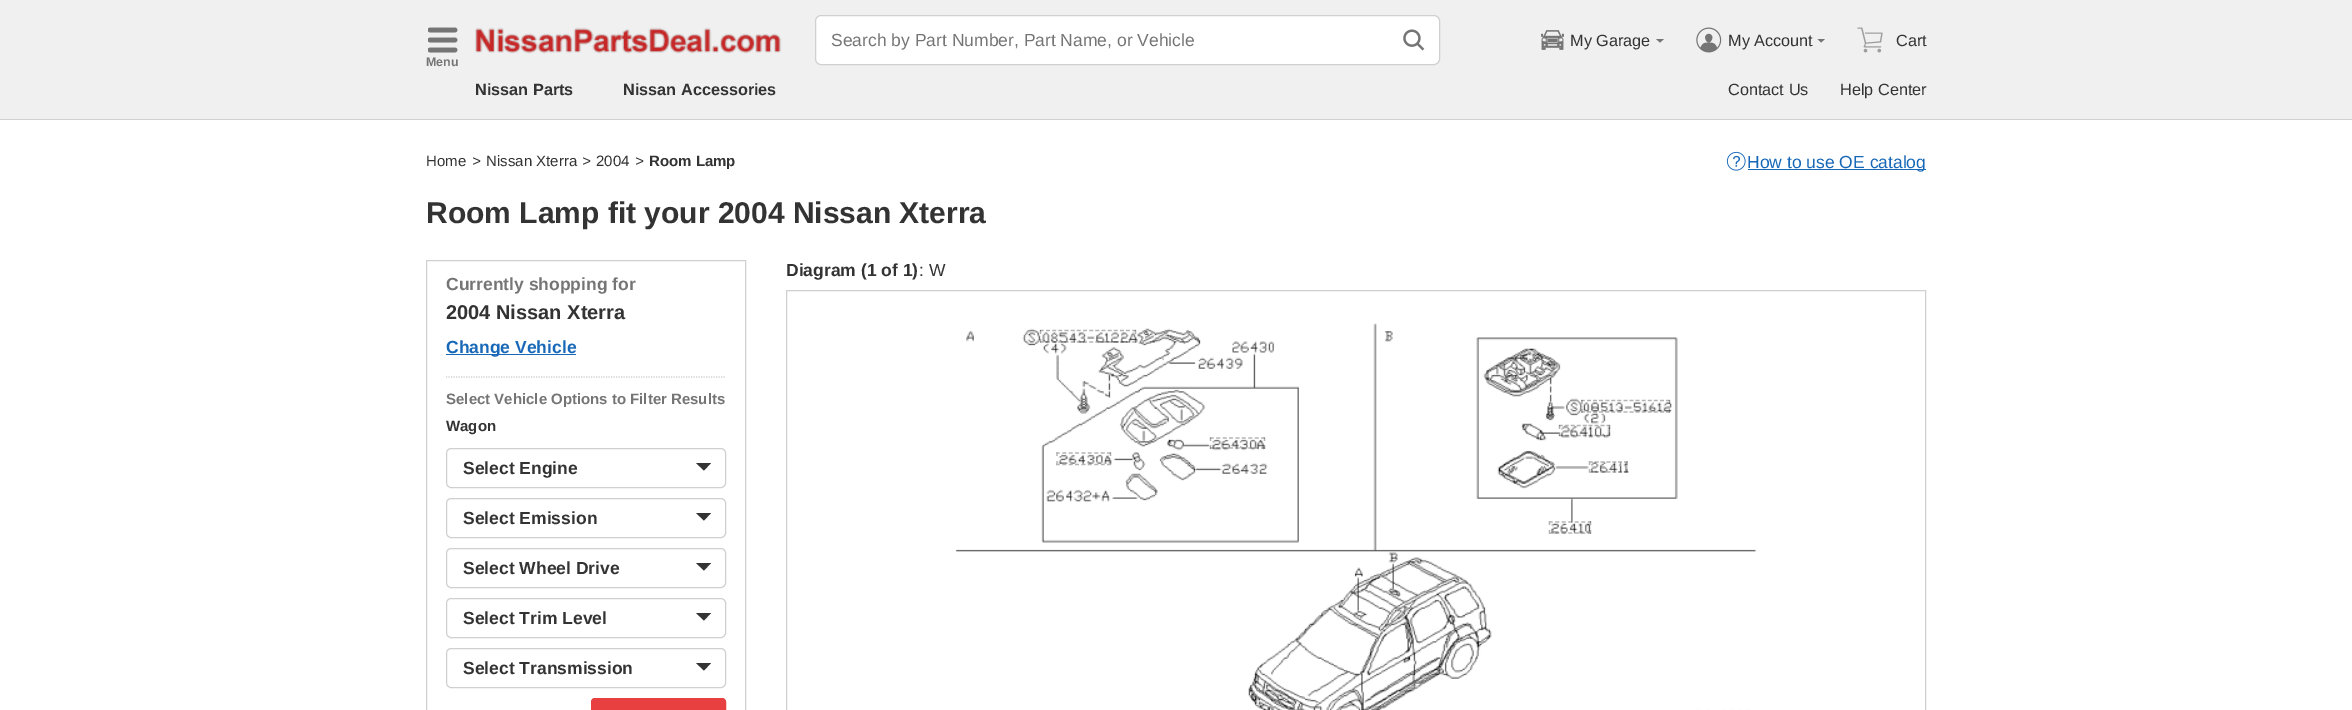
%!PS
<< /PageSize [2352 710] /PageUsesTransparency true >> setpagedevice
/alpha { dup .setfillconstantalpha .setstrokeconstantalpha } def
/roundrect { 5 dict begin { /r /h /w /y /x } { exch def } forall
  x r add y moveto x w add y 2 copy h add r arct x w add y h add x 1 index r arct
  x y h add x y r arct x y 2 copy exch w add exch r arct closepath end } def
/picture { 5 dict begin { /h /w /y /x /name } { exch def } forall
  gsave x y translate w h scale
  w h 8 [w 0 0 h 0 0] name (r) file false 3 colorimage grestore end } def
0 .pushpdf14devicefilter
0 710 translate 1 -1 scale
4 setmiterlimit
1 setgray
0 0 2352 710 rectfill
0.941 setgray
0 0 2352 119 rectfill
0.816 setgray
0 119 2352 1 rectfill
1 setgray
815.5 15.5 624 49 5.5 roundrect gsave fill grestore
0.816 setgray
stroke
/LiberationSans-Regular [17.5 0 0 -17.5 0 0] selectfont
0.459 setgray
831 46 moveto (Search by Part Number, Part Name, or Vehicle) show
(img1.rgb) 1403 29 22 22 picture
(img2.rgb) 1541 30 23 20 picture
/LiberationSans-Regular [16.25 0 0 -16.25 0 0] selectfont
0.2 setgray
1570 46 moveto (My Garage) show
0.459 setgray
newpath 1656 39 moveto 1664 39 lineto 1660 42.5 lineto closepath fill
(img3.rgb) 1696 27 26 26 picture
0.2 setgray
1728 46 moveto (My Account) show
0.459 setgray
newpath 1817.5 39 moveto 1825 39 lineto 1821 42.5 lineto closepath fill
(img4.rgb) 1857 27 26 26 picture
0.2 setgray
1896 46 moveto (Cart) show
(img5.rgb) 475 27 307 27 picture
(img6.rgb) 428 27 30 26 picture
/LiberationSans-Bold [12.5 0 0 -12.5 0 0] selectfont
0.459 setgray
426 66 moveto (Menu) show
/LiberationSans-Bold [16.25 0 0 -16.25 0 0] selectfont
0.2 setgray
475 95 moveto (Nissan Parts) show
623 95 moveto (Nissan Accessories) show
/LiberationSans-Regular [16.25 0 0 -16.25 0 0] selectfont
1728 95 moveto (Contact Us) show
1840 95 moveto (Help Center) show
/LiberationSans-Regular [15 0 0 -15 0 0] selectfont
426 166 moveto (Home) show
/LiberationSans-Italic [15 0 0 -15 0 0] selectfont
472 166 moveto (>) show
/LiberationSans-Regular [15 0 0 -15 0 0] selectfont
486 166 moveto (Nissan Xterra) show
/LiberationSans-Italic [15 0 0 -15 0 0] selectfont
582 166 moveto (>) show
/LiberationSans-Regular [15 0 0 -15 0 0] selectfont
596 166 moveto (2004) show
/LiberationSans-Italic [15 0 0 -15 0 0] selectfont
635 166 moveto (>) show
/LiberationSans-Bold [15 0 0 -15 0 0] selectfont
649 166 moveto (Room Lamp) show
/LiberationSans-Bold [30 0 0 -30 0 0] selectfont
426 223 moveto (Room Lamp fit your 2004 Nissan Xterra) show
(img7.rgb) 1726 151 20 20 picture
0.094 0.408 0.722 setrgbcolor
1748 169 178 1 rectfill
/LiberationSans-Regular [17.5 0 0 -17.5 0 0] selectfont
1747 168 moveto (How to use OE catalog) show
0.816 setgray
426.5 260.5 319 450 rectstroke
/LiberationSans-Bold [17.5 0 0 -17.5 0 0] selectfont
0.459 setgray
446 290 moveto (Currently shopping for) show
/LiberationSans-Bold [20 0 0 -20 0 0] selectfont
0.2 setgray
446 319 moveto (2004 Nissan Xterra) show
0.094 0.408 0.722 setrgbcolor
446 354 130 1 rectfill
/LiberationSans-Bold [17.5 0 0 -17.5 0 0] selectfont
446 353 moveto (Change Vehicle) show
0.816 setgray
1.2 setlinewidth
[1.25 1.25] 0 setdash
newpath 446 377 moveto 726 377 lineto stroke
/LiberationSans-Bold [15 0 0 -15 0 0] selectfont
0.459 setgray
446 404 moveto (Select Vehicle Options to Filter Results) show
0.2 setgray
446 431 moveto (Wagon) show
0.816 setgray
1 setlinewidth
[] 0 setdash
446.5 448.5 279 39 4.5 roundrect stroke
/LiberationSans-Bold [17.5 0 0 -17.5 0 0] selectfont
0.2 setgray
463 474 moveto (Select Engine) show
newpath 696 463 moveto 711 463 lineto 704 470.5 lineto closepath fill
0.816 setgray
446.5 498.5 279 39 4.5 roundrect stroke
0.2 setgray
463 524 moveto (Select Emission) show
newpath 696 513 moveto 711 513 lineto 704 520.5 lineto closepath fill
0.816 setgray
446.5 548.5 279 39 4.5 roundrect stroke
0.2 setgray
463 574 moveto (Select Wheel Drive) show
newpath 696 563 moveto 711 563 lineto 704 570.5 lineto closepath fill
0.816 setgray
446.5 598.5 279 39 4.5 roundrect stroke
0.2 setgray
463 624 moveto (Select Trim Level) show
newpath 696 613 moveto 711 613 lineto 704 620.5 lineto closepath fill
0.816 setgray
446.5 648.5 279 39 4.5 roundrect stroke
0.2 setgray
463 674 moveto (Select Transmission) show
newpath 696 663 moveto 711 663 lineto 704 670.5 lineto closepath fill
0.91 0.251 0.251 setrgbcolor
591.5 698.5 134 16 3.5 roundrect gsave fill grestore
stroke
0.2 setgray
786 276 moveto (Diagram \(1 of 1\)) show
/LiberationSans-Regular [17.5 0 0 -17.5 0 0] selectfont
919 276 moveto (: W) show
0.816 setgray
786.5 290.5 1139 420 rectstroke
(img8.rgb) 956 323 801 387 picture
0.702 setgray
1.2 setlinewidth
[3.75 2.41] 0 setdash
newpath 1040 330.5 moveto 1136 330.5 lineto stroke
0.32 alpha
0.067 setgray
[] 0 setdash
newpath 1135.5 330 moveto 1135.5 334 lineto 1135.5 339 moveto 1135.5 342.5 lineto stroke
[3.75 2.41] 0 setdash
newpath 1040 342 moveto 1136 342 lineto stroke
[] 0 setdash
newpath 1040.5 330 moveto 1040.5 334 lineto 1040.5 339 moveto 1040.5 342.5 lineto stroke
1 alpha
0.702 setgray
[3.75 2.33] 0 setdash
newpath 1581 400.5 moveto 1670 400.5 lineto stroke
0.32 alpha
0.067 setgray
[] 0 setdash
newpath 1669.5 400 moveto 1669.5 404 lineto 1669.5 409 moveto 1669.5 412.5 lineto stroke
[3.75 2.33] 0 setdash
newpath 1581 412 moveto 1670 412 lineto stroke
[] 0 setdash
newpath 1582 400 moveto 1582 404 lineto 1582 409 moveto 1582 412.5 lineto stroke
1 alpha
0.702 setgray
[3.75 2.19] 0 setdash
newpath 1559 425.5 moveto 1610 425.5 lineto stroke
0.32 alpha
0.067 setgray
[] 0 setdash
newpath 1609.5 425 moveto 1609.5 429 lineto 1609.5 432.5 moveto 1609.5 436 lineto stroke
[3.75 2.19] 0 setdash
newpath 1559 435.5 moveto 1610 435.5 lineto stroke
[] 0 setdash
newpath 1559.5 425 moveto 1559.5 429 lineto 1559.5 432.5 moveto 1559.5 436 lineto stroke
[3.75 2.65] 0 setdash
newpath 1210 438 moveto 1265 438 lineto stroke
[] 0 setdash
newpath 1264.5 437.5 moveto 1264.5 441 lineto 1264.5 445 moveto 1264.5 449 lineto stroke
[3.75 2.65] 0 setdash
newpath 1210 448 moveto 1265 448 lineto stroke
[] 0 setdash
newpath 1210.5 437.5 moveto 1210.5 441 lineto 1210.5 445 moveto 1210.5 449 lineto stroke
1 alpha
0.702 setgray
[3.75 2.65] 0 setdash
newpath 1056 453 moveto 1111 453 lineto stroke
0.32 alpha
0.067 setgray
[] 0 setdash
newpath 1110.5 452.5 moveto 1110.5 456 lineto 1110.5 461 moveto 1110.5 465 lineto stroke
1 alpha
0.702 setgray
[3.75 2.65] 0 setdash
newpath 1056 464.5 moveto 1111 464.5 lineto stroke
[] 0 setdash
newpath 1057 452.5 moveto 1057 456 lineto 1057 461 moveto 1057 465 lineto stroke
0.32 alpha
0.067 setgray
[3.75 2.09] 0 setdash
newpath 1589 462 moveto 1627.5 462 lineto stroke
[] 0 setdash
newpath 1627 461 moveto 1627 465 lineto 1627 469 moveto 1627 472.5 lineto stroke
[3.75 2.09] 0 setdash
newpath 1589 472 moveto 1627.5 472 lineto stroke
1 alpha
0.702 setgray
[] 0 setdash
newpath 1589.5 461 moveto 1589.5 465 lineto 1589.5 469 moveto 1589.5 472.5 lineto stroke
0.32 alpha
0.067 setgray
[3.75 2.71] 0 setdash
newpath 1549 522 moveto 1591 522 lineto stroke
[] 0 setdash
newpath 1590.5 521 moveto 1590.5 525 lineto 1590.5 530 moveto 1590.5 534 lineto stroke
[3.75 2.71] 0 setdash
newpath 1549 533 moveto 1591 533 lineto stroke
1 alpha
0.702 setgray
[] 0 setdash
newpath 1549.5 521 moveto 1549.5 525 lineto 1549.5 530 moveto 1549.5 534 lineto stroke
.poppdf14devicefilter showpage
